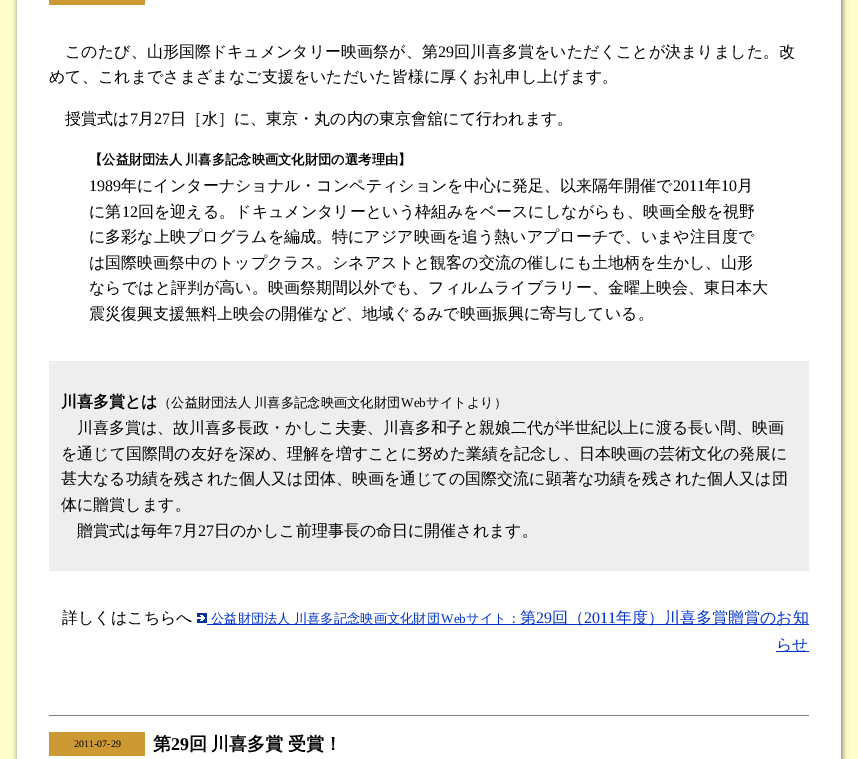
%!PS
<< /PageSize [858 759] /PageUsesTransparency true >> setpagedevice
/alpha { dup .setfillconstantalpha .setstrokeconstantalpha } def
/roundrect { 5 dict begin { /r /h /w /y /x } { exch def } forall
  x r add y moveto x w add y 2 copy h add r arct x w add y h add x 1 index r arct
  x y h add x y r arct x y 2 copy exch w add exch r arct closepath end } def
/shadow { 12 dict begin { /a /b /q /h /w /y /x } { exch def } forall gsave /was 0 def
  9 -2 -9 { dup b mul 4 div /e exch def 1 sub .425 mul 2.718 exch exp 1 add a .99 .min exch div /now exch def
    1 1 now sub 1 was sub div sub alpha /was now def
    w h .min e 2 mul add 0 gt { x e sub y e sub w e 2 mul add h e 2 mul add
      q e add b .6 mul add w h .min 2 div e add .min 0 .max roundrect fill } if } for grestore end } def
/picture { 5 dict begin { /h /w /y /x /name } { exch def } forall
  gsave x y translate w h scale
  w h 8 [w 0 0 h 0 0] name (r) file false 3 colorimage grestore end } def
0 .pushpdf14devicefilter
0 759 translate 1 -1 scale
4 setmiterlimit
1 1 0.8 setrgbcolor
0 0 858 759 rectfill
0.4 setgray
18 -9 824 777 0 3 1 shadow
1 setgray
17 0 824 759 rectfill
0.8 0.6 0.2 setrgbcolor
49 0 96 5 rectfill
/WenQuanYiZenHei-Medium [16 0 0 -16 0 0] selectfont
0 setgray
65 57 moveto (このたび、山形国際ドキュメンタリー映画祭が、第) show
/LiberationSerif-Regular [16 0 0 -16 0 0] selectfont
438 57 moveto (29) show
/WenQuanYiZenHei-Medium [16 0 0 -16 0 0] selectfont
454 57 moveto (回川喜多賞をいただくことが決まりました。改) show
49 82 moveto (めて、これまでさまざまなご支援をいただいた皆様に厚くお礼申し上げます。) show
65 124 moveto (授賞式は) show
/LiberationSerif-Regular [16 0 0 -16 0 0] selectfont
130 124 moveto (7) show
/WenQuanYiZenHei-Medium [16 0 0 -16 0 0] selectfont
138 124 moveto (月) show
/LiberationSerif-Regular [16 0 0 -16 0 0] selectfont
154 124 moveto (27) show
/WenQuanYiZenHei-Medium [16 0 0 -16 0 0] selectfont
170 124 moveto (日［水］に、東京・丸の内の東京會舘にて行われます。) show
/WenQuanYiZenHei-Bold [13.3 0 0 -13.3 0 0] selectfont
89 164 moveto -1 0 32 (【公益財団法人 川喜多記念映画文化財団の選考理由】) widthshow
/LiberationSerif-Regular [16 0 0 -16 0 0] selectfont
89 191 moveto (1989) show
/WenQuanYiZenHei-Medium [16 0 0 -16 0 0] selectfont
121 191 moveto (年にインターナショナル・コンペティションを中心に発足、以来隔年開催で) show
/LiberationSerif-Regular [16 0 0 -16 0 0] selectfont
673 191 moveto (2011) show
/WenQuanYiZenHei-Medium [16 0 0 -16 0 0] selectfont
705 191 moveto (年) show
/LiberationSerif-Regular [16 0 0 -16 0 0] selectfont
721 191 moveto (10) show
/WenQuanYiZenHei-Medium [16 0 0 -16 0 0] selectfont
737 191 moveto (月) show
89 217 moveto (に第) show
/LiberationSerif-Regular [16 0 0 -16 0 0] selectfont
122 217 moveto (12) show
/WenQuanYiZenHei-Medium [16 0 0 -16 0 0] selectfont
138 217 moveto (回を迎える。ドキュメンタリーという枠組みをベースにしながらも、映画全般を視野) show
89 242 moveto (に多彩な上映プログラムを編成。特にアジア映画を追う熱いアプローチで、いまや注目度で) show
89 268 moveto (は国際映画祭中のトップクラス。シネアストと観客の交流の催しにも土地柄を生かし、山形) show
89 293 moveto (ならではと評判が高い。映画祭期間以外でも、フィルムライブラリー、金曜上映会、東日本大) show
89 319 moveto (震災復興支援無料上映会の開催など、地域ぐるみで映画振興に寄与している。) show
0.933 setgray
49 361 760 210 rectfill
/WenQuanYiZenHei-Bold [16 0 0 -16 0 0] selectfont
0 setgray
61 407 moveto (川喜多賞とは) show
/WenQuanYiZenHei-Medium [13.3 0 0 -13.3 0 0] selectfont
158 407 moveto -1 0 32 (（公益財団法人 川喜多記念映画文化財団) widthshow
/LiberationSerif-Regular [13.3 0 0 -13.3 0 0] selectfont
401 407 moveto (Web) show
/WenQuanYiZenHei-Medium [13.3 0 0 -13.3 0 0] selectfont
426 407 moveto (サイトより）) show
/WenQuanYiZenHei-Medium [16 0 0 -16 0 0] selectfont
77 433 moveto (川喜多賞は、故川喜多長政・かしこ夫妻、川喜多和子と親娘二代が半世紀以上に渡る長い間、映画) show
61 459 moveto (を通じて国際間の友好を深め、理解を増すことに努めた業績を記念し、日本映画の芸術文化の発展に) show
61 484 moveto (甚大なる功績を残された個人又は団体、映画を通じての国際交流に顕著な功績を残された個人又は団) show
61 510 moveto (体に贈賞します。) show
77 536 moveto (贈賞式は毎年) show
/LiberationSerif-Regular [16 0 0 -16 0 0] selectfont
174 536 moveto (7) show
/WenQuanYiZenHei-Medium [16 0 0 -16 0 0] selectfont
182 536 moveto (月) show
/LiberationSerif-Regular [16 0 0 -16 0 0] selectfont
198 536 moveto (27) show
/WenQuanYiZenHei-Medium [16 0 0 -16 0 0] selectfont
214 536 moveto (日のかしこ前理事長の命日に開催されます。) show
62 623 moveto (詳しくはこちらへ) show
(img1.rgb) 197 613 10 10 picture
0 0.2 0.8 setrgbcolor
207 624 602 1 rectfill
/WenQuanYiZenHei-Medium [13.3 0 0 -13.3 0 0] selectfont
211 623 moveto -1 0 32 (公益財団法人 川喜多記念映画文化財団) widthshow
/LiberationSerif-Regular [13.3 0 0 -13.3 0 0] selectfont
441 623 moveto (Web) show
/WenQuanYiZenHei-Medium [13.3 0 0 -13.3 0 0] selectfont
466 623 moveto (サイト：) show
/WenQuanYiZenHei-Medium [16 0 0 -16 0 0] selectfont
520 623 moveto (第) show
/LiberationSerif-Regular [16 0 0 -16 0 0] selectfont
536 623 moveto (29) show
/WenQuanYiZenHei-Medium [16 0 0 -16 0 0] selectfont
552 623 moveto (回（) show
/LiberationSerif-Regular [16 0 0 -16 0 0] selectfont
584 623 moveto (2011) show
/WenQuanYiZenHei-Medium [16 0 0 -16 0 0] selectfont
616 623 moveto (年度）川喜多賞贈賞のお知) show
776 651 33 1 rectfill
776 650 moveto (らせ) show
0.502 setgray
49 715 760 1 rectfill
0.8 0.6 0.2 setrgbcolor
49 732 96 24 rectfill
/LiberationSerif-Regular [10 0 0 -10 0 0] selectfont
0 setgray
74 747 moveto (2011-07-29) show
/WenQuanYiZenHei-Bold [18 0 0 -18 0 0] selectfont
153 750 moveto (第) show
/LiberationSerif-Bold [18 0 0 -18 0 0] selectfont
171 750 moveto (29) show
/WenQuanYiZenHei-Bold [18 0 0 -18 0 0] selectfont
189 750 moveto -1 0 32 (回 川喜多賞 受賞！) widthshow
.poppdf14devicefilter showpage
